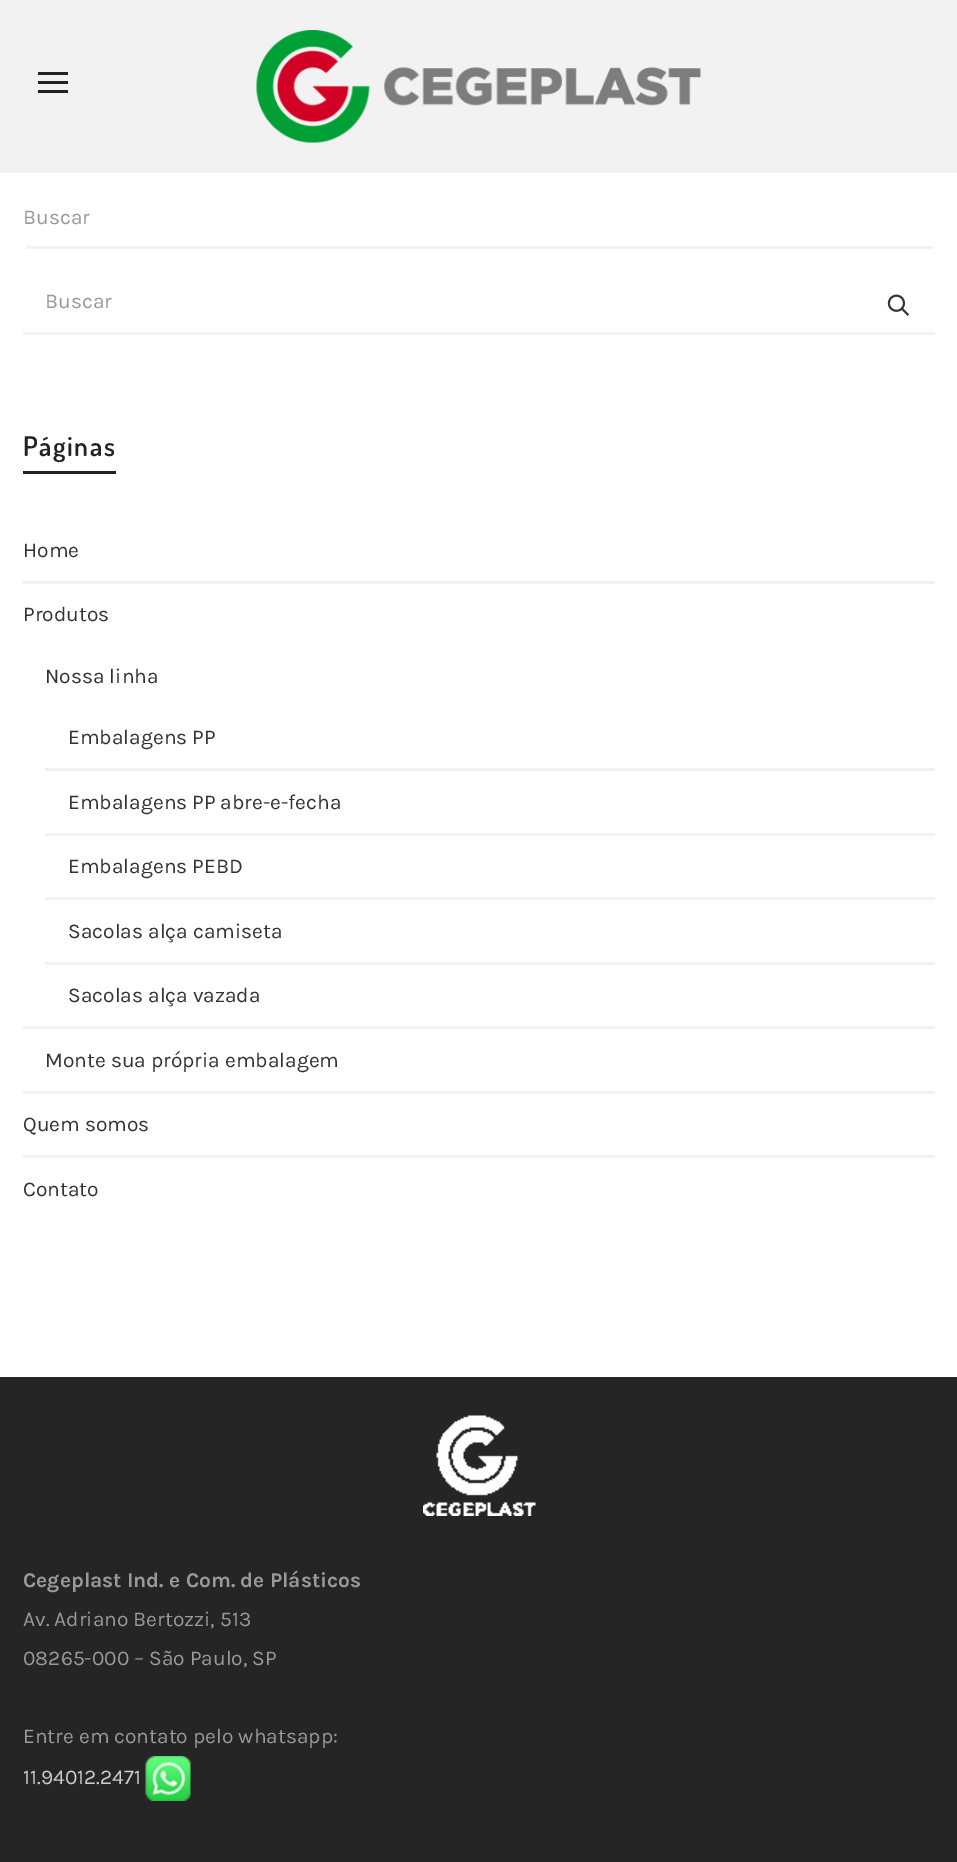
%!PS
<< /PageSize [957 1862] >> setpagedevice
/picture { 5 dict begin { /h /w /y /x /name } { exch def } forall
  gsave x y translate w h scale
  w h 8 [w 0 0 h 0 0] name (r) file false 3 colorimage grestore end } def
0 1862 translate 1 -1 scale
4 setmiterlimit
1 setgray
0 0 957 1862 rectfill
0.949 setgray
0 0 957 173 rectfill
0.133 setgray
38 81 30 3 rectfill
38 72 30 3 rectfill
38 90 30 3 rectfill
(img1.rgb) 256 30 445 113 picture
0.949 setgray
26 246 907 3 rectfill
/Karla-Regular [21 0 0 -21 0 0] selectfont
0.6 setgray
23 224 moveto (Buscar) show
0.949 setgray
23 332 912 3 rectfill
0.6 setgray
45 308 moveto (Buscar) show
(img2.rgb) 887 294 23 22 picture
0.133 setgray
23 471 93 3 rectfill
/Dosis-SemiBold [27 0 0 -27 0 0] selectfont
23 456 moveto 1.5 0 (Páginas) ashow
/Karla-Regular [21 0 0 -21 0 0] selectfont
0.2 setgray
23 557 moveto (Home) show
0.949 setgray
23 581 912 3 rectfill
0.2 setgray
23 621 moveto (Produtos) show
45 683 moveto (Nossa linha) show
68 744 moveto (Embalagens PP) show
0.949 setgray
45 768 890 3 rectfill
0.2 setgray
68 809 moveto (Embalagens PP abre-e-fecha) show
0.949 setgray
45 833 890 3 rectfill
0.2 setgray
68 873 moveto (Embalagens PEBD) show
0.949 setgray
45 897 890 3 rectfill
0.2 setgray
68 938 moveto (Sacolas alça camiseta) show
0.949 setgray
45 962 890 3 rectfill
0.2 setgray
68 1002 moveto (Sacolas alça vazada) show
0.949 setgray
23 1026 912 3 rectfill
0.2 setgray
45 1067 moveto (Monte sua própria embalagem) show
0.949 setgray
23 1091 912 3 rectfill
0.2 setgray
23 1131 moveto (Quem somos) show
0.949 setgray
23 1155 912 3 rectfill
0.2 setgray
23 1196 moveto (Contato) show
0.145 setgray
0 1377 957 485 rectfill
(img3.rgb) 423 1415 113 101 picture
/Karla-Bold [21 0 0 -21 0 0] selectfont
0.6 setgray
23 1587 moveto (Cegeplast Ind. e Com. de Plásticos) show
/Karla-Regular [21 0 0 -21 0 0] selectfont
23 1626 moveto (Av. Adriano Bertozzi, 513) show
23 1665 moveto (08265-000 – São Paulo, SP) show
23 1743 moveto (Entre em contato pelo whatsapp:) show
0.8 setgray
23 1784 moveto (11.94012.2471) show
(img4.rgb) 145 1756 46 45 picture
showpage
